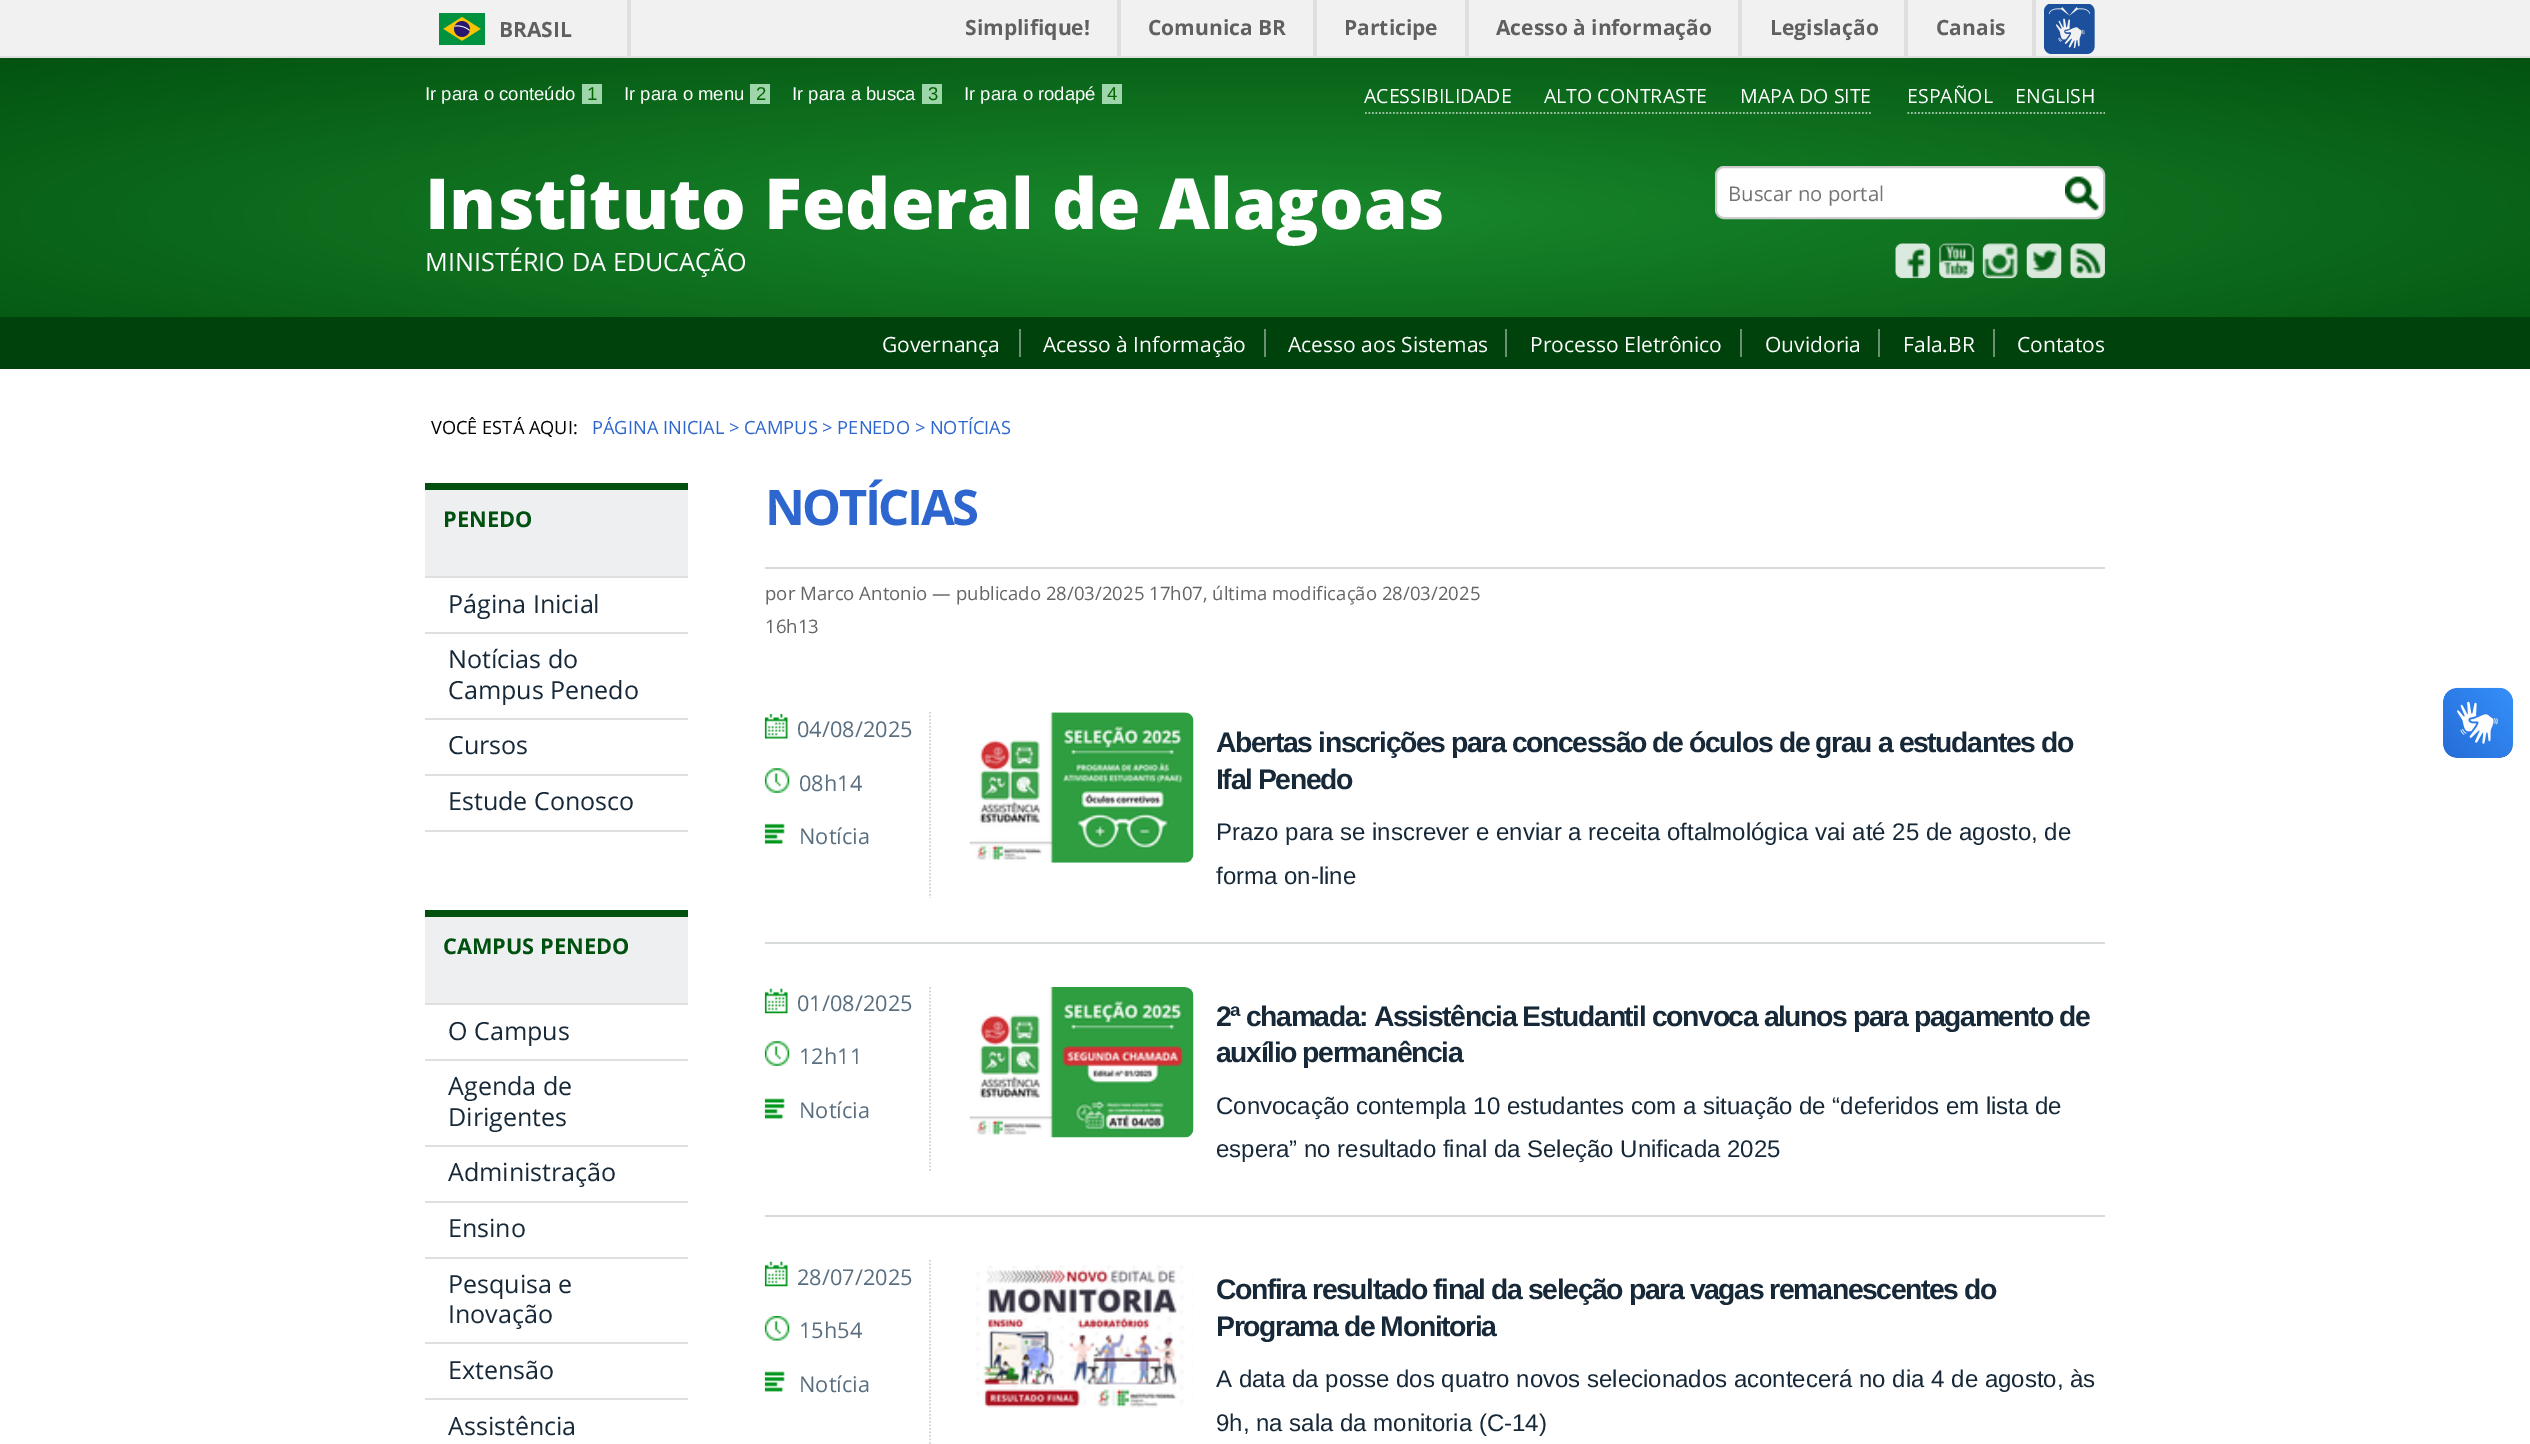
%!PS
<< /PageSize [2530 1444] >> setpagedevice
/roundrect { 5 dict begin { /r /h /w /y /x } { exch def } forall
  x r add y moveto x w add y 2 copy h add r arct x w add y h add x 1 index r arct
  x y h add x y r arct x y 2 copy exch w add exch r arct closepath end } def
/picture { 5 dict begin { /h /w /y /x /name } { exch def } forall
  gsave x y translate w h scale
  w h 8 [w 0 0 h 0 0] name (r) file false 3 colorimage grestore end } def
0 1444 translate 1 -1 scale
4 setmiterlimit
1 setgray
0 0 2530 1444 rectfill
0.945 setgray
0 0 2530 56 rectfill
0.875 setgray
0 56 2530 2 rectfill
627 0 4 56 rectfill
(img1.rgb) 439 13 46 32 picture
/OpenSans-Bold [21 0 0 -21 0 0] selectfont
0.376 setgray
499 37 moveto (BRASIL) show
0.875 setgray
1117 0 4 56 rectfill
0.376 setgray
965 35 moveto (Simplifique!) show
0.875 setgray
1313 0 4 56 rectfill
0.376 setgray
1148 35 moveto (Comunica BR) show
0.875 setgray
1465 0 4 56 rectfill
0.376 setgray
1344 35 moveto (Participe) show
0.875 setgray
1738 0 4 56 rectfill
0.376 setgray
1496 35 moveto (Acesso à informação) show
0.875 setgray
1904 0 4 56 rectfill
0.376 setgray
1770 35 moveto (Legislação) show
0.875 setgray
2032 0 4 56 rectfill
0.376 setgray
1936 35 moveto (Canais) show
(img2.rgb) 2044 4 51 50 picture
gsave newpath 0 58 moveto 2530 58 lineto 2530 317 lineto 0 317 lineto closepath clip newpath 1265 214 translate 1789 220 scale
<< /ShadingType 3 /ColorSpace /DeviceRGB /Coords [0 0 0 0 0 1] /Extend [true true] /Function << /FunctionType 3 /Domain [0 1] /Functions [<< /FunctionType 2 /Domain [0 1] /C0 [0.098 0.533 0.173] /C1 [0.098 0.533 0.173] /N 1 >> << /FunctionType 2 /Domain [0 1] /C0 [0.098 0.533 0.173] /C1 [0.008 0.325 0.063] /N 1 >>] /Bounds [0.01] /Encode [0 1 0 1] >> >> shfill grestore
/LiberationSans-Regular [18.5 0 0 -18.5 0 0] selectfont
1 setgray
425 100 moveto (Ir para o conteúdo) show
0.62 0.835 0.671 setrgbcolor
582 84 20 20 rectfill
0 0.4 0 setrgbcolor
587 100 moveto (1) show
1 setgray
624 100 moveto (Ir para o menu) show
0.62 0.835 0.671 setrgbcolor
750 84 20 20 rectfill
0 0.4 0 setrgbcolor
756 100 moveto (2) show
1 setgray
792 100 moveto (Ir para a busca) show
0.62 0.835 0.671 setrgbcolor
922 84 20 20 rectfill
0 0.4 0 setrgbcolor
928 100 moveto (3) show
1 setgray
964 100 moveto (Ir para o rodapé) show
0.62 0.835 0.671 setrgbcolor
1102 84 20 20 rectfill
0 0.4 0 setrgbcolor
1107 100 moveto (4) show
0.608 0.761 0.639 setrgbcolor
1.8 setlinewidth
[1.75 1.75] 0 setdash
newpath 1365 113 moveto 1872.5 113 lineto stroke
/OpenSans-Regular [19.5 0 0 -19.5 0 0] selectfont
1 setgray
1364 103 moveto (ACESSIBILIDADE) show
1544 103 moveto (ALTO CONTRASTE) show
1740 103 moveto (MAPA DO SITE) show
0.608 0.761 0.639 setrgbcolor
newpath 1907.5 113 moveto 2105 113 lineto stroke
1 setgray
1907 103 moveto (ESPAÑOL) show
2015 103 moveto (ENGLISH) show
/OpenSans-ExtraBold [70.3 0 0 -70.3 0 0] selectfont
425 229 moveto (Instituto Federal de Alagoas) show
/OpenSans-Regular [25.25 0 0 -25.25 0 0] selectfont
425 271 moveto (MINISTÉRIO DA EDUCAÇÃO) show
1716 167 388 51 8 roundrect gsave fill grestore
0.8 setgray
2 setlinewidth
[] 0 setdash
stroke
/OpenSans-Regular [20.25 0 0 -20.25 0 0] selectfont
0.459 setgray
1728 201 moveto (Buscar no portal) show
(img3.rgb) 2065 176 34 35 picture
(img4.rgb) 1895 243 36 36 picture
(img5.rgb) 1939 243 35 36 picture
(img6.rgb) 1982 243 36 36 picture
(img7.rgb) 2026 243 36 36 picture
(img8.rgb) 2070 243 35 36 picture
0 0.259 0.047 setrgbcolor
0 317 2530 52 rectfill
/OpenSans-Regular [21 0 0 -21 0 0] selectfont
1 setgray
882 352 moveto (Governança) show
0.424 0.565 0.447 setrgbcolor
1019 329 2 28 rectfill
1 setgray
1043 352 moveto (Acesso à Informação) show
0.424 0.565 0.447 setrgbcolor
1264 329 2 28 rectfill
1 setgray
1288 352 moveto (Acesso aos Sistemas) show
0.424 0.565 0.447 setrgbcolor
1505 329 2 28 rectfill
1 setgray
1530 352 moveto (Processo Eletrônico) show
0.424 0.565 0.447 setrgbcolor
1740 329 2 28 rectfill
1 setgray
1765 352 moveto (Ouvidoria) show
0.424 0.565 0.447 setrgbcolor
1878 329 2 28 rectfill
1 setgray
1903 352 moveto (Fala.BR) show
0.424 0.565 0.447 setrgbcolor
1993 329 2 28 rectfill
1 setgray
2017 352 moveto (Contatos) show
/OpenSans-Regular [18.2 0 0 -18.2 0 0] selectfont
0 setgray
431 434 moveto (VOCÊ ESTÁ AQUI:) show
0.173 0.4 0.808 setrgbcolor
592 434 moveto (PÁGINA INICIAL > CAMPUS > PENEDO > NOTÍCIAS) show
0.929 0.937 0.945 setrgbcolor
425 490 263 86 rectfill
0 0.318 0.059 setrgbcolor
425 483 263 7 rectfill
/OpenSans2-Bold [21.75 0 0 -21.75 0 0] selectfont
443 527 moveto (PENEDO) show
0.875 setgray
425 576 263 2 rectfill
/OpenSans-Regular [25 0 0 -25 0 0] selectfont
0.09 0.161 0.22 setrgbcolor
448 613 moveto (Página Inicial) show
0.875 setgray
425 632 263 2 rectfill
0.09 0.161 0.22 setrgbcolor
448 668 moveto (Notícias do) show
448 699 moveto (Campus Penedo) show
0.875 setgray
425 718 263 2 rectfill
0.09 0.161 0.22 setrgbcolor
448 754 moveto (Cursos) show
0.875 setgray
425 774 263 2 rectfill
425 830 263 2 rectfill
0.09 0.161 0.22 setrgbcolor
448 810 moveto (Estude Conosco) show
0.929 0.937 0.945 setrgbcolor
425 917 263 86 rectfill
0 0.318 0.059 setrgbcolor
425 910 263 7 rectfill
/OpenSans2-Bold [21.75 0 0 -21.75 0 0] selectfont
443 954 moveto (CAMPUS PENEDO) show
0.875 setgray
425 1003 263 2 rectfill
/OpenSans-Regular [25 0 0 -25 0 0] selectfont
0.09 0.161 0.22 setrgbcolor
448 1040 moveto (O Campus) show
0.875 setgray
425 1059 263 2 rectfill
0.09 0.161 0.22 setrgbcolor
448 1095 moveto (Agenda de) show
448 1126 moveto (Dirigentes) show
0.875 setgray
425 1145 263 2 rectfill
0.09 0.161 0.22 setrgbcolor
448 1181 moveto (Administração) show
0.875 setgray
425 1201 263 2 rectfill
0.09 0.161 0.22 setrgbcolor
448 1237 moveto (Ensino) show
0.875 setgray
425 1257 263 2 rectfill
0.09 0.161 0.22 setrgbcolor
448 1293 moveto (Pesquisa e) show
448 1323 moveto (Inovação) show
0.875 setgray
425 1342 263 2 rectfill
0.09 0.161 0.22 setrgbcolor
448 1379 moveto (Extensão) show
0.875 setgray
425 1398 263 2 rectfill
0.09 0.161 0.22 setrgbcolor
448 1435 moveto (Assistência) show
0.851 0.859 0.855 setrgbcolor
765 567 1340 2 rectfill
/OpenSans2-Bold [49 0 0 -49 0 0] selectfont
0.173 0.4 0.808 setrgbcolor
765 525 moveto -2.5 0 (NOTÍCIAS) ashow
/OpenSans-Regular [18.55 0 0 -18.55 0 0] selectfont
0.4 setgray
765 600 moveto (por Marco Antonio — publicado 28/03/2025 17h07, última modificação 28/03/2025) show
765 633 moveto (16h13) show
0.843 0.859 0.855 setrgbcolor
765 942 1340 2 rectfill
(img9.rgb) 764 714 24 25 picture
/OpenSans-Regular [21.75 0 0 -21.75 0 0] selectfont
0.349 0.431 0.498 setrgbcolor
797 737 moveto (04/08/2025) show
(img10.rgb) 764 768 26 25 picture
799 791 moveto (08h14) show
(img11.rgb) 764 823 21 21 picture
799 844 moveto (Notícia) show
0.839 setgray
1.8 setlinewidth
[1.75 1.75] 0 setdash
newpath 930 712 moveto 930 898 lineto stroke
(img12.rgb) 969 712 225 151 picture
/LiberationSans-Bold [28.4 0 0 -28.4 0 0] selectfont
0.09 0.161 0.22 setrgbcolor
1216 752 moveto -1.42 0 (Abertas inscrições para concessão de óculos de grau a estudantes do) ashow
1216 789 moveto -1.42 0 (Ifal Penedo) ashow
/LiberationSans-Regular [24 0 0 -24 0 0] selectfont
1216 840 moveto (Prazo para se inscrever e enviar a receita oftalmológica vai até 25 de agosto, de) show
1216 884 moveto (forma on-line) show
0.843 0.859 0.855 setrgbcolor
765 1215 1340 2 rectfill
(img13.rgb) 764 988 24 26 picture
/OpenSans-Regular [21.75 0 0 -21.75 0 0] selectfont
0.349 0.431 0.498 setrgbcolor
797 1011 moveto (01/08/2025) show
(img10.rgb) 764 1041 26 25 picture
799 1064 moveto (12h11) show
(img14.rgb) 764 1098 21 21 picture
799 1118 moveto (Notícia) show
0.839 setgray
newpath 930 987 moveto 930 1171 lineto stroke
(img15.rgb) 969 987 225 151 picture
/LiberationSans-Bold [28.4 0 0 -28.4 0 0] selectfont
0.09 0.161 0.22 setrgbcolor
1216 1026 moveto -1.42 0 (2ª chamada: Assistência Estudantil convoca alunos para pagamento de) ashow
1216 1062 moveto -1.42 0 (auxílio permanência) ashow
/LiberationSans-Regular [24 0 0 -24 0 0] selectfont
1216 1114 moveto (Convocação contempla 10 estudantes com a situação de “deferidos em lista de) show
1216 1157 moveto (espera” no resultado final da Seleção Unificada 2025) show
(img13.rgb) 764 1261 24 26 picture
/OpenSans-Regular [21.75 0 0 -21.75 0 0] selectfont
0.349 0.431 0.498 setrgbcolor
797 1285 moveto (28/07/2025) show
(img16.rgb) 764 1316 26 25 picture
799 1338 moveto (15h54) show
(img14.rgb) 764 1371 21 21 picture
799 1392 moveto (Notícia) show
0.839 setgray
newpath 930 1260 moveto 930 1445.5 lineto stroke
(img17.rgb) 976 1265 217 143 picture
/LiberationSans-Bold [28.4 0 0 -28.4 0 0] selectfont
0.09 0.161 0.22 setrgbcolor
1216 1299 moveto -1.42 0 (Confira resultado final da seleção para vagas remanescentes do) ashow
1216 1336 moveto -1.42 0 (Programa de Monitoria) ashow
/LiberationSans-Regular [24 0 0 -24 0 0] selectfont
1216 1387 moveto (A data da posse dos quatro novos selecionados acontecerá no dia 4 de agosto, às) show
1216 1431 moveto (9h, na sala da monitoria \(C-14\)) show
(img18.rgb) 2443 687 70 71 picture
(img19.rgb) 2443 688 70 70 picture
showpage
